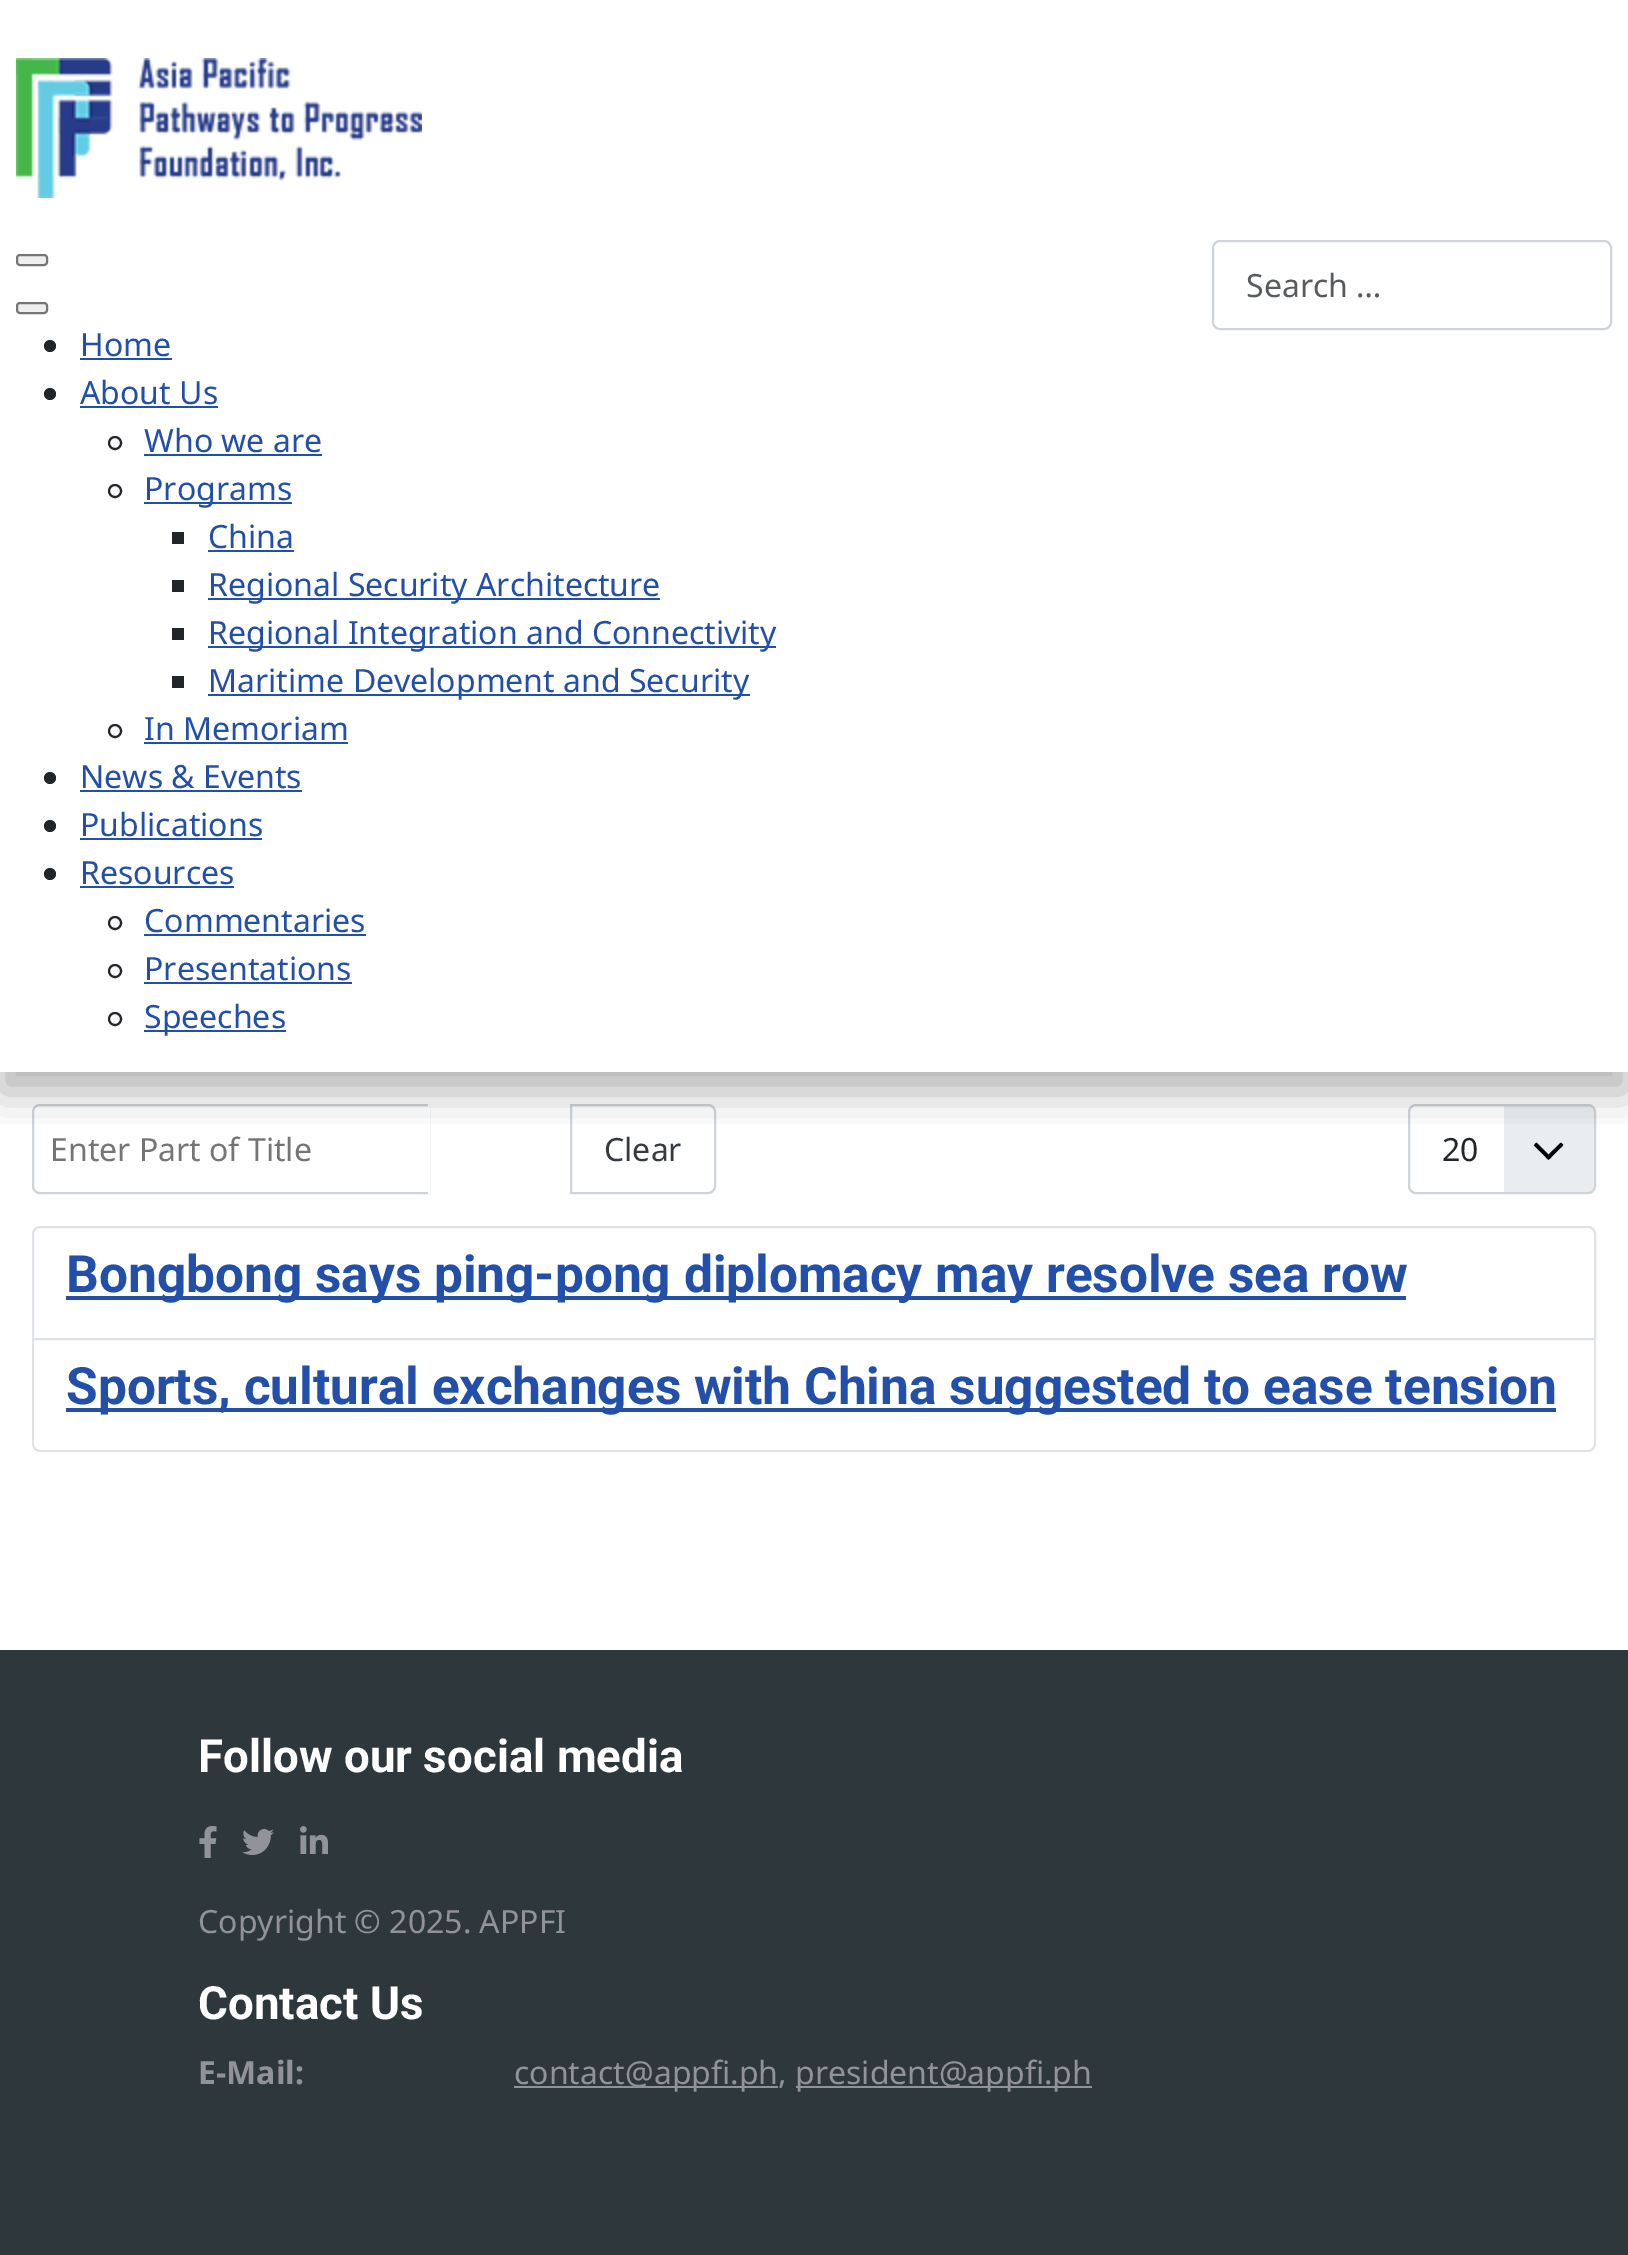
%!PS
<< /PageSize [1628 2255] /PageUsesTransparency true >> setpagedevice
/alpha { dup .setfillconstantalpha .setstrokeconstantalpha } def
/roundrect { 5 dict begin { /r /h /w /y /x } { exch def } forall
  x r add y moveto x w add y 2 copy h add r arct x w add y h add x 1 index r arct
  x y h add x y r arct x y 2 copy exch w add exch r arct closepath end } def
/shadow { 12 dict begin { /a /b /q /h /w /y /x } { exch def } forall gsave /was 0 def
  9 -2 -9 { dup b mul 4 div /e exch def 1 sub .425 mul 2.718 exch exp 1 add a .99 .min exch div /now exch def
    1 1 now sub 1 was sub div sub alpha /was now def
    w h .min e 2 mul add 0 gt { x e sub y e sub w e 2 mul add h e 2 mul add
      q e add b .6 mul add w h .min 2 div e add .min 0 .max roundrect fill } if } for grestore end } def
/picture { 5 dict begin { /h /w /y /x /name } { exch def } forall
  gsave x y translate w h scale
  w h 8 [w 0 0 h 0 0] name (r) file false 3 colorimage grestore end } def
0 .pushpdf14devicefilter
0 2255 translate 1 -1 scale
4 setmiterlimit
1 setgray
0 0 1628 2255 rectfill
0.808 0.831 0.855 setrgbcolor
2 setlinewidth
newpath 40 1105 moveto 429 1105 lineto 429 1193 lineto 40 1193 lineto 36 1193 33 1190 33 1186 curveto 33 1112 lineto 33 1108 36 1105 40 1105 curveto closepath stroke
1 setgray
429 1105 142 88 rectstroke
0.808 0.831 0.855 setrgbcolor
newpath 571 1105 moveto 708 1105 lineto 712 1105 715 1108 715 1112 curveto 715 1186 lineto 715 1190 712 1193 708 1193 curveto 571 1193 lineto closepath stroke
0.918 0.929 0.941 setrgbcolor
1408 1104 188 90 8 roundrect fill
0 setgray
newpath 1534 1145.5 moveto 1545.5 1157 lineto 1549 1160.5 1548 1160.5 1551.5 1157 curveto 1560.5 1148 lineto 1561 1147.5 1563.5 1146 1563 1144.5 curveto 1562 1143.5 lineto 1560.5 1142 1560.5 1143 1558.5 1145 curveto 1548.5 1154.5 lineto 1537 1143 lineto 1536 1142.5 1534.5 1144 1534.5 1145 curveto 1533.5 1145 1534 1145.5 1534 1145.5 curveto closepath fill
1 setgray
newpath 1416 1104 moveto 1504 1104 lineto 1504 1194 lineto 1416 1194 lineto 1411.5 1194 1408 1190.5 1408 1186 curveto 1408 1112 lineto 1408 1107.5 1411.5 1104 1416 1104 curveto closepath fill
0.808 0.831 0.855 setrgbcolor
1409 1105 186 88 7 roundrect stroke
gsave
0 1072 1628 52 rectclip
0 setgray
0 20 1628 1072 0 21 0.3 shadow
grestore
(img1.rgb) 16 58 406 140 picture
1213 241 398 88 7 roundrect stroke
/NotoSans-Regular [32 0 0 -32 0 0] selectfont
0.349 0.361 0.373 setrgbcolor
1246 297 moveto (Search …) show
0.937 setgray
17 255 30 10 3 roundrect gsave fill grestore
0.463 setgray
stroke
0.937 setgray
17 303 30 10 3 roundrect gsave fill grestore
0.463 setgray
stroke
0.133 0.149 0.165 setrgbcolor
newpath 50 346 6 0 360 arc closepath fill
0.133 0.31 0.667 setrgbcolor
80 356 moveto (Home) show
80 358 92 2 rectfill
0.133 0.149 0.165 setrgbcolor
newpath 50 394 6 0 360 arc closepath fill
0.133 0.31 0.667 setrgbcolor
80 404 moveto (About Us) show
80 406 138 2 rectfill
0.133 0.149 0.165 setrgbcolor
newpath 115 443 6 0 360 arc closepath stroke
0.133 0.31 0.667 setrgbcolor
144 452 moveto (Who we are) show
144 454 178 2 rectfill
0.133 0.149 0.165 setrgbcolor
newpath 115 491 6 0 360 arc closepath stroke
0.133 0.31 0.667 setrgbcolor
144 502 148 2 rectfill
144 500 moveto (Programs) show
0.133 0.149 0.165 setrgbcolor
172 532 12 12 rectfill
0.133 0.31 0.667 setrgbcolor
208 548 moveto (China) show
208 550 86 2 rectfill
0.133 0.149 0.165 setrgbcolor
172 580 12 12 rectfill
0.133 0.31 0.667 setrgbcolor
208 598 452 2 rectfill
208 596 moveto (Regional Security Architecture) show
0.133 0.149 0.165 setrgbcolor
172 628 12 12 rectfill
0.133 0.31 0.667 setrgbcolor
208 646 568 2 rectfill
208 644 moveto (Regional Integration and Connectivity) show
0.133 0.149 0.165 setrgbcolor
172 676 12 12 rectfill
0.133 0.31 0.667 setrgbcolor
208 694 542 2 rectfill
208 692 moveto (Maritime Development and Security) show
0.133 0.149 0.165 setrgbcolor
newpath 115 731 6 0 360 arc closepath stroke
0.133 0.31 0.667 setrgbcolor
144 740 moveto (In Memoriam) show
144 742 204 2 rectfill
0.133 0.149 0.165 setrgbcolor
newpath 50 778 6 0 360 arc closepath fill
0.133 0.31 0.667 setrgbcolor
80 788 moveto (News & Events) show
80 790 222 2 rectfill
0.133 0.149 0.165 setrgbcolor
newpath 50 826 6 0 360 arc closepath fill
0.133 0.31 0.667 setrgbcolor
80 836 moveto (Publications) show
80 838 182 2 rectfill
0.133 0.149 0.165 setrgbcolor
newpath 50 874 6 0 360 arc closepath fill
0.133 0.31 0.667 setrgbcolor
80 884 moveto (Resources) show
80 886 154 2 rectfill
0.133 0.149 0.165 setrgbcolor
newpath 115 923 6 0 360 arc closepath stroke
0.133 0.31 0.667 setrgbcolor
144 932 moveto (Commentaries) show
144 934 222 2 rectfill
0.133 0.149 0.165 setrgbcolor
newpath 115 971 6 0 360 arc closepath stroke
0.133 0.31 0.667 setrgbcolor
144 980 moveto (Presentations) show
144 982 208 2 rectfill
0.133 0.149 0.165 setrgbcolor
newpath 115 1019 6 0 360 arc closepath stroke
0.133 0.31 0.667 setrgbcolor
144 1030 142 2 rectfill
144 1028 moveto (Speeches) show
0.459 setgray
50 1161 moveto (Enter Part of Title) show
0.208 0.231 0.255 setrgbcolor
604 1161 moveto (Clear) show
0.133 0.149 0.165 setrgbcolor
1442 1161 moveto (20) show
0.875 0.89 0.906 setrgbcolor
newpath 40 1227 moveto 1588 1227 lineto 1592 1227 1595 1230 1595 1234 curveto 1595 1339 lineto 33 1339 lineto 33 1234 lineto 33 1230 36 1227 40 1227 curveto closepath stroke
0.133 0.31 0.667 setrgbcolor
66 1296 1340 4 rectfill
/Roboto-Bold [51.4 0 0 -51.4 0 0] selectfont
66 1292 moveto (Bongbong says ping-pong diplomacy may resolve sea row) show
0.875 0.89 0.906 setrgbcolor
newpath 32 1340 moveto 1596 1340 lineto 1596 1444 lineto 1596 1448 1592 1452 1588 1452 curveto 40 1452 lineto 36 1452 32 1448 32 1444 curveto closepath 34 1340 moveto 1594 1340 lineto 1594 1444 lineto 1594 1447 1591 1450 1588 1450 curveto 40 1450 lineto 37 1450 34 1447 34 1444 curveto closepath eofill
0.133 0.31 0.667 setrgbcolor
66 1408 1490 4 rectfill
66 1404 moveto (Sports, cultural exchanges with China suggested to ease tension) show
0.18 0.216 0.235 setrgbcolor
0 1650 1628 605 rectfill
/Roboto-Bold [45.75 0 0 -45.75 0 0] selectfont
1 setgray
198 1772 moveto (Follow our social media) show
(img2.rgb) 199 1826 18 32 picture
(img3.rgb) 242 1829 32 26 picture
(img4.rgb) 300 1826 28 28 picture
/NotoSans-Regular [32 0 0 -32 0 0] selectfont
0.569 0.573 0.612 setrgbcolor
198 1933 moveto (Copyright © 2025. APPFI) show
/Roboto-Bold [45.75 0 0 -45.75 0 0] selectfont
1 setgray
198 2019 moveto (Contact Us) show
/NotoSans-Bold [32 0 0 -32 0 0] selectfont
0.569 0.573 0.612 setrgbcolor
198 2084 moveto (E-Mail:) show
514 2086 264 2 rectfill
/NotoSans-Regular [32 0 0 -32 0 0] selectfont
514 2084 moveto (contact@appfi.ph,) show
796 2086 296 2 rectfill
795 2084 moveto (president@appfi.ph) show
.poppdf14devicefilter showpage
